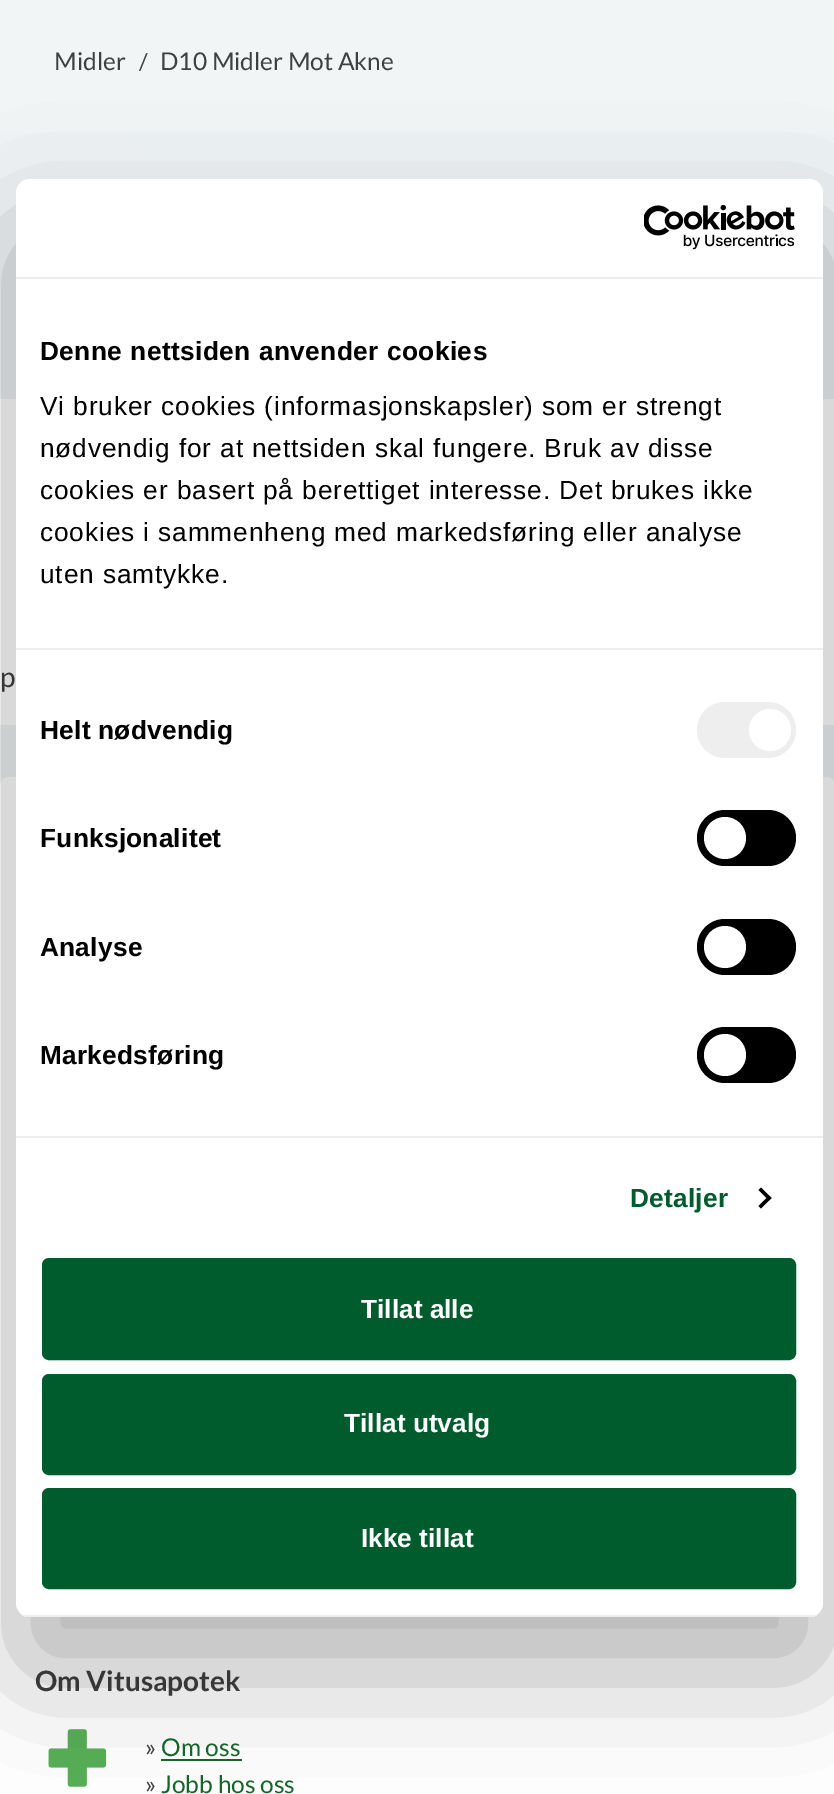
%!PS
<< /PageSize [834 1794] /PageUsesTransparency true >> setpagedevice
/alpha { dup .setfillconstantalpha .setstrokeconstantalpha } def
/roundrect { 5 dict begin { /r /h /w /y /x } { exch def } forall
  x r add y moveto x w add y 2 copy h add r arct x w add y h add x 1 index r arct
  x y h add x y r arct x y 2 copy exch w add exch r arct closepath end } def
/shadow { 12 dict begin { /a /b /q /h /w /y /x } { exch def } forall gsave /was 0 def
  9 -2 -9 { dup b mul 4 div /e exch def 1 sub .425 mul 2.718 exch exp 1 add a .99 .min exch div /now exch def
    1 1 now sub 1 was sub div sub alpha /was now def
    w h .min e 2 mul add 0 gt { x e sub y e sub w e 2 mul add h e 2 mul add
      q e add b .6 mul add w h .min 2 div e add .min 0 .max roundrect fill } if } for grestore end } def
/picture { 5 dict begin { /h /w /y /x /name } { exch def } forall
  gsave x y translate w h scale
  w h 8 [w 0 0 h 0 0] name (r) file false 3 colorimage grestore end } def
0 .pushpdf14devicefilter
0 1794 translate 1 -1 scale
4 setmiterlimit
1 setgray
0 0 834 1794 rectfill
gsave newpath 0 133 moveto 834 133 lineto 834 786 lineto 0 786 lineto closepath clip newpath
<< /ShadingType 2 /ColorSpace /DeviceRGB /Coords [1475 386 -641 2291] /Extend [true true] /Function << /FunctionType 3 /Domain [0 1] /Functions [<< /FunctionType 2 /Domain [0 1] /C0 [0.933 0.953 0.961] /C1 [0.933 0.953 0.961] /N 1 >> << /FunctionType 2 /Domain [0 1] /C0 [0.933 0.953 0.961] /C1 [0.976 0.98 0.969] /N 1 >>] /Bounds [0.25] /Encode [0 1 0 1] >> >> shfill grestore
0.945 0.961 0.965 setrgbcolor
0 0 834 133 rectfill
/Lato-Regular [24.5 0 0 -24.5 0 0] selectfont
0.251 setgray
54 70 moveto (Midler) show
/Lato-Regular [23 0 0 -23 0 0] selectfont
139 70 moveto (/) show
/Lato-Regular [24.5 0 0 -24.5 0 0] selectfont
160 70 moveto (D10 Midler Mot Akne) show
1 setgray
0 399 834 326 rectfill
/Lato-Regular [28 0 0 -28 0 0] selectfont
0.251 setgray
0 687 moveto (p) show
1 setgray
0 777 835 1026 9 roundrect fill
/Lato-Bold [28 0 0 -28 0 0] selectfont
0.251 setgray
35 1691 moveto (Om Vitusapotek) show
(img1.rgb) 48 1729 59 58 picture
/Lato-Regular [24.5 0 0 -24.5 0 0] selectfont
145 1756 moveto (») show
0.086 0.404 0.161 setrgbcolor
161 1756 moveto (Om oss) show
161 1759 81 2 rectfill
0.251 setgray
145 1793 moveto (») show
0.086 0.404 0.161 setrgbcolor
161 1793 moveto (Jobb hos oss) show
0 setgray
16 235 807 1438 14 59.5 0.3 shadow
1 setgray
16 179 807 1438 14 roundrect fill
0.933 setgray
16 277 807 2 rectfill
(img2.rgb) 644 205 151 45 picture
16 648 807 2 rectfill
/LiberationSans-Bold [26.25 0 0 -26.25 0 0] selectfont
0 setgray
40 360 moveto 0.45 0 (Denne nettsiden anvender cookies) ashow
/LiberationSans-Regular [26.25 0 0 -26.25 0 0] selectfont
40 415 moveto 0.88 0 (Vi bruker cookies \(informasjonskapsler\) som er strengt) ashow
40 457 moveto 0.88 0 (nødvendig for at nettsiden skal fungere. Bruk av disse) ashow
40 499 moveto 0.88 0 (cookies er basert på berettiget interesse. Det brukes ikke) ashow
40 541 moveto 0.88 0 (cookies i sammenheng med markedsføring eller analyse) ashow
40 583 moveto 0.88 0 (uten samtykke.) ashow
0.933 setgray
16 1136 807 2 rectfill
/LiberationSans-Bold [26.25 0 0 -26.25 0 0] selectfont
0 setgray
40 739 moveto 0.25 0 (Helt nødvendig) ashow
0.933 setgray
697 702 99 56 28 roundrect fill
1 setgray
newpath 770 730 21 0 360 arc closepath fill
0 setgray
40 847 moveto 0.25 0 (Funksjonalitet) ashow
697 810 99 56 28 roundrect fill
1 setgray
newpath 725 838 21 0 360 arc closepath fill
0 setgray
40 956 moveto 0.25 0 (Analyse) ashow
697 919 99 56 28 roundrect fill
1 setgray
newpath 725 947 21 0 360 arc closepath fill
0 setgray
40 1064 moveto 0.25 0 (Markedsføring) ashow
697 1027 99 56 28 roundrect fill
1 setgray
newpath 725 1055 21 0 360 arc closepath fill
0 0.357 0.176 setrgbcolor
630 1207 moveto 0.25 0 (Detaljer) ashow
0 setgray
newpath 761 1187.5 moveto 771.5 1198 lineto 769 1200.5 lineto 758.5 1190 lineto closepath fill
newpath 769 1195.5 moveto 771.5 1198 lineto 761 1208.5 lineto 758.5 1206 lineto closepath fill
gsave
16 179 807 1438 14 roundrect clip newpath
0.933 setgray
16 1615 807 2 rectfill
grestore
0 0.357 0.176 setrgbcolor
44 1260 750 98 5 roundrect gsave fill grestore
4 setlinewidth
stroke
1 setgray
361 1318 moveto (Tillat alle) show
0 0.357 0.176 setrgbcolor
44 1376 750 97 5 roundrect gsave fill grestore
stroke
1 setgray
344 1432 moveto (Tillat utvalg) show
0 0.357 0.176 setrgbcolor
44 1490 750 97 5 roundrect gsave fill grestore
stroke
1 setgray
361 1547 moveto (Ikke tillat) show
.poppdf14devicefilter showpage
